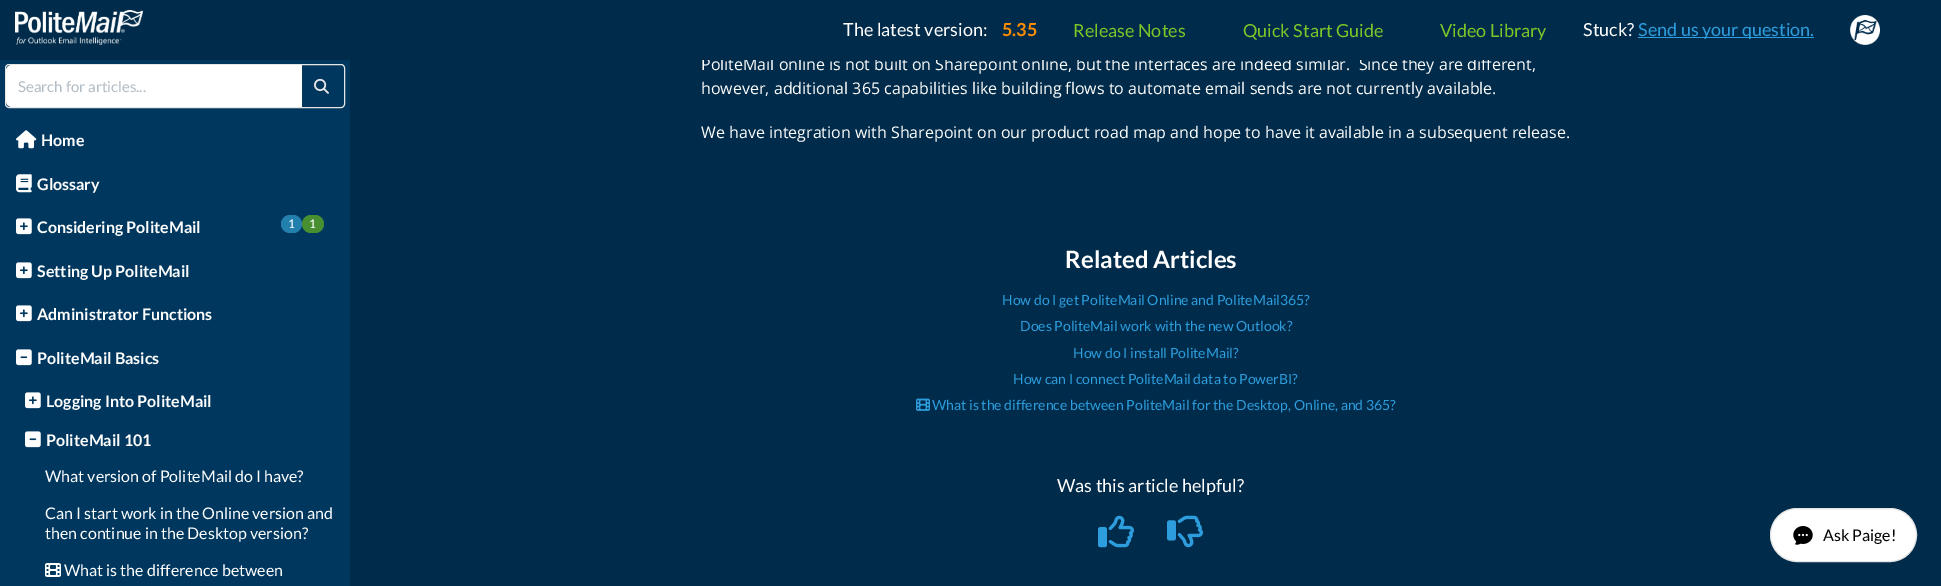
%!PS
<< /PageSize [1941 586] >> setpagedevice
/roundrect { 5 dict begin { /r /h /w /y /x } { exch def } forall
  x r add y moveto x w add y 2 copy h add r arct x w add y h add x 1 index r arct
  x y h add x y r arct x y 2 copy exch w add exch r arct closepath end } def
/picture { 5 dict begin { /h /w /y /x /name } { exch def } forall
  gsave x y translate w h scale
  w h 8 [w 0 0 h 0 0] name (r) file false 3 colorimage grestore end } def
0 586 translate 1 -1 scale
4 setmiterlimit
0 0.169 0.29 setrgbcolor
0 0 1941 586 rectfill
/OpenSans-Regular [16 0 0 -16 0 0] selectfont
1 setgray
701 70 moveto (PoliteMail online is not built on Sharepoint online, but the interfaces are indeed similar.  Since they are different,) show
0 0.169 0.29 setrgbcolor
702 57 827 3 rectfill
(img1.rgb) 15 10 128 35 picture
/Lato-Regular [18 0 0 -18 0 0] selectfont
1 setgray
843 36 moveto (The latest version:) show
/Lato-Bold [18 0 0 -18 0 0] selectfont
1 0.561 0 setrgbcolor
1002 36 moveto (5.35) show
/Lato-Regular [18 0 0 -18 0 0] selectfont
0.498 0.773 0.161 setrgbcolor
1073 37 moveto (Release Notes) show
1243 37 moveto (Quick Start Guide) show
1440 37 moveto (Video Library) show
1 setgray
1583 36 moveto (Stuck?) show
0.176 0.616 0.867 setrgbcolor
1638 37 176 1 rectfill
1638 36 moveto (Send us your question.) show
(img2.rgb) 1850 15 30 30 picture
0 0.216 0.369 setrgbcolor
0 60 350 526 rectfill
0.902 setgray
5.5 64.5 339 43 3.5 roundrect stroke
1 setgray
newpath 12 65 moveto 302 65 lineto 302 107 lineto 12 107 lineto 8.5 107 6 104.5 6 101 curveto 6 71 lineto 6 67.5 8.5 65 12 65 curveto closepath fill
/Lato-Regular [15 0 0 -15 0 0] selectfont
0.698 0.737 0.773 setrgbcolor
18 92 moveto (Search for articles...) show
(img3.rgb) 314 78 15 16 picture
(img4.rgb) 16 130 21 19 picture
/Lato-Bold [16 0 0 -16 0 0] selectfont
1 setgray
41 146 moveto (Home) show
(img5.rgb) 16 174 16 19 picture
37 190 moveto (Glossary) show
(img6.rgb) 16 218 16 17 picture
37 233 moveto (Considering PoliteMail) show
0.137 0.502 0.675 setrgbcolor
281 215 21 18 9 roundrect fill
/Lato-Regular [12 0 0 -12 0 0] selectfont
1 setgray
288 228 moveto 1 0 (1) ashow
0.278 0.561 0.192 setrgbcolor
302 215 22 18 9 roundrect fill
1 setgray
309 228 moveto 1 0 (1) ashow
(img6.rgb) 16 262 16 17 picture
/Lato-Bold [16 0 0 -16 0 0] selectfont
37 277 moveto (Setting Up PoliteMail) show
(img6.rgb) 16 305 16 17 picture
37 320 moveto (Administrator Functions) show
(img7.rgb) 16 349 16 17 picture
37 364 moveto (PoliteMail Basics) show
(img6.rgb) 25 392 16 17 picture
46 407 moveto (Logging Into PoliteMail) show
(img7.rgb) 25 431 16 17 picture
46 446 moveto (PoliteMail 101) show
/Lato-Regular [16 0 0 -16 0 0] selectfont
45 482 moveto (What version of PoliteMail do I have?) show
45 519 moveto (Can I start work in the Online version and) show
45 539 moveto (then continue in the Desktop version?) show
(img8.rgb) 45 563 16 14 picture
64 576 moveto (What is the difference between) show
/OpenSans-Regular [16 0 0 -16 0 0] selectfont
701 94 moveto (however, additional 365 capabilities like building flows to automate email sends are not currently available.) show
701 138 moveto (We have integration with Sharepoint on our product road map and hope to have it available in a subsequent release.) show
/Lato-Bold [24 0 0 -24 0 0] selectfont
1065 268 moveto (Related Articles) show
/Lato-Regular [14 0 0 -14 0 0] selectfont
0.176 0.616 0.867 setrgbcolor
1002 305 moveto (How do I get PoliteMail Online and PoliteMail365?) show
1020 331 moveto (Does PoliteMail work with the new Outlook?) show
1073 358 moveto (How do I install PoliteMail?) show
1013 384 moveto (How can I connect PoliteMail data to PowerBI?) show
(img9.rgb) 916 398 14 13 picture
932 410 moveto (What is the difference between PoliteMail for the Desktop, Online, and 365?) show
/Lato-Regular [18 0 0 -18 0 0] selectfont
1 setgray
1057 492 moveto (Was this article helpful?) show
(img10.rgb) 1098 515 36 33 picture
(img11.rgb) 1167 515 36 33 picture
1770.5 508.5 146 53 26.5 roundrect gsave fill grestore
0.89 setgray
stroke
(img12.rgb) 1793 526 20 19 picture
/Lato-Regular [16 0 0 -16 0 0] selectfont
0 setgray
1823 541 moveto (Ask Paige!) show
showpage
